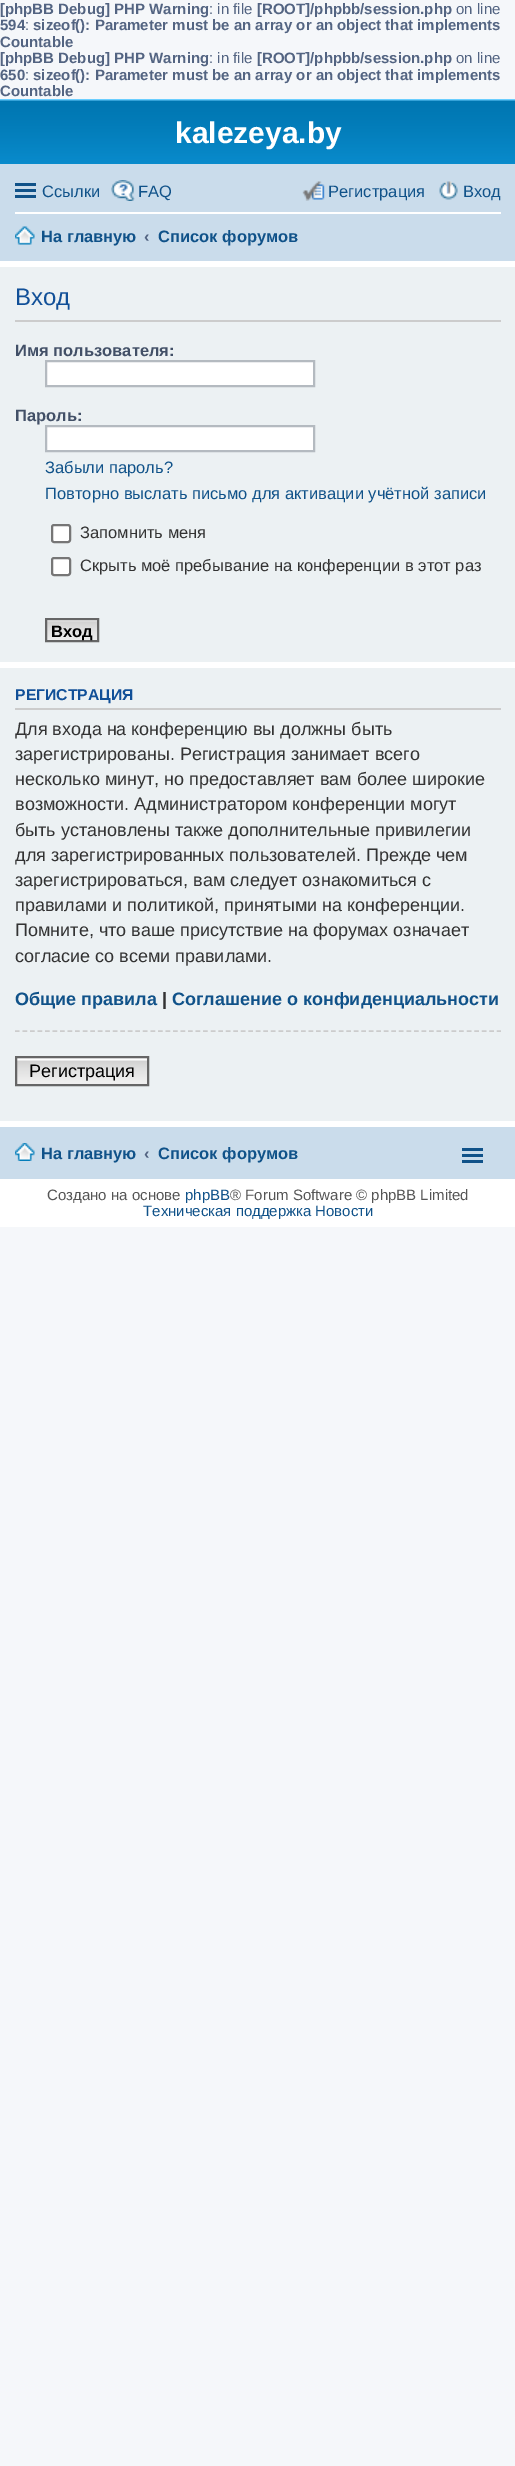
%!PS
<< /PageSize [515 2466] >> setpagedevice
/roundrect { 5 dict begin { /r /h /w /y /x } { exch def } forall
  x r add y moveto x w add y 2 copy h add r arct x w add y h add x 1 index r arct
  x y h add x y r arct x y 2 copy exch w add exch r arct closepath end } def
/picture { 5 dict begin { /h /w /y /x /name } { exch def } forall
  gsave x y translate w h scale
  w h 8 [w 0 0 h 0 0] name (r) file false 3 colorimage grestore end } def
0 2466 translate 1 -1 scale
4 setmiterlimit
0.961 0.969 0.98 setrgbcolor
0 0 515 2466 rectfill
/LiberationSans-Bold [15 0 0 -15 0 0] selectfont
0.325 0.392 0.51 setrgbcolor
0 14 moveto ([phpBB Debug] PHP Warning) show
/LiberationSans-Regular [15 0 0 -15 0 0] selectfont
209 14 moveto (: in file) show
/LiberationSans-Bold [15 0 0 -15 0 0] selectfont
257 14 moveto ([ROOT]/phpbb/session.php) show
/LiberationSans-Regular [15 0 0 -15 0 0] selectfont
456 14 moveto (on line) show
/LiberationSans-Bold [15 0 0 -15 0 0] selectfont
0 30 moveto (594) show
/LiberationSans-Regular [15 0 0 -15 0 0] selectfont
25 30 moveto (:) show
/LiberationSans-Bold [15 0 0 -15 0 0] selectfont
33 30 moveto (sizeof\(\): Parameter must be an array or an object that implements) show
0 47 moveto (Countable) show
0 63 moveto ([phpBB Debug] PHP Warning) show
/LiberationSans-Regular [15 0 0 -15 0 0] selectfont
209 63 moveto (: in file) show
/LiberationSans-Bold [15 0 0 -15 0 0] selectfont
257 63 moveto ([ROOT]/phpbb/session.php) show
/LiberationSans-Regular [15 0 0 -15 0 0] selectfont
456 63 moveto (on line) show
/LiberationSans-Bold [15 0 0 -15 0 0] selectfont
0 80 moveto (650) show
/LiberationSans-Regular [15 0 0 -15 0 0] selectfont
25 80 moveto (:) show
/LiberationSans-Bold [15 0 0 -15 0 0] selectfont
33 80 moveto (sizeof\(\): Parameter must be an array or an object that implements) show
0 96 moveto (Countable) show
1 setgray
0 261 515 966 rectfill
(img1.rgb) 0 99 515 65 picture
/LiberationSans-Bold [30 0 0 -30 0 0] selectfont
175 143 moveto (kalezeya.by) show
0.792 0.863 0.922 setrgbcolor
0 164 515 97 rectfill
0.063 0.322 0.537 setrgbcolor
15 183 21 3 rectfill
15 189 21 3 rectfill
15 195 21 3 rectfill
/LiberationSans-Regular [16.5 0 0 -16.5 0 0] selectfont
42 197 moveto (Ссылки) show
(img2.rgb) 111 180 24 21 picture
138 197 moveto (FAQ) show
(img3.rgb) 302 181 23 20 picture
328 197 moveto (Регистрация) show
(img4.rgb) 439 181 19 19 picture
463 197 moveto (Вход) show
1 setgray
15 212 486 2 rectfill
(img5.rgb) 15 226 20 19 picture
/LiberationSans-Bold [16.5 0 0 -16.5 0 0] selectfont
0.063 0.322 0.537 setrgbcolor
41 242 moveto (На главную) show
0.325 0.392 0.51 setrgbcolor
144 242 moveto (‹) show
0.063 0.322 0.537 setrgbcolor
158 242 moveto (Список форумов) show
0.925 0.945 0.953 setrgbcolor
0 267 515 395 rectfill
0.8 setgray
15 320 486 2 rectfill
/LiberationSans-Regular [24 0 0 -24 0 0] selectfont
0.067 0.314 0.596 setrgbcolor
15 305 moveto (Вход) show
/LiberationSans-Bold [16.5 0 0 -16.5 0 0] selectfont
0.259 0.314 0.404 setrgbcolor
15 356 moveto (Имя пользователя:) show
1 setgray
newpath 46 361 moveto 314 361 lineto 314 386 lineto 46 386 lineto closepath gsave fill grestore
0.706 0.729 0.753 setrgbcolor
2 setlinewidth
stroke
0.259 0.314 0.404 setrgbcolor
15 421 moveto (Пароль:) show
1 setgray
newpath 46 426 moveto 314 426 lineto 314 451 lineto 46 451 lineto closepath gsave fill grestore
0.706 0.729 0.753 setrgbcolor
stroke
/LiberationSans-Regular [16.5 0 0 -16.5 0 0] selectfont
0.063 0.322 0.537 setrgbcolor
45 473 moveto (Забыли пароль?) show
45 499 moveto (Повторно выслать письмо для активации учётной записи) show
1 setgray
52 525 18 17 2 roundrect gsave fill grestore
0.463 setgray
stroke
0.2 setgray
80 538 moveto (Запомнить меня) show
1 setgray
52 558 18 17 2 roundrect gsave fill grestore
0.463 setgray
stroke
0.2 setgray
80 571 moveto (Скрыть моё пребывание на конференции в этот раз) show
0.98 setgray
47 620 50 1 rectfill
(img6.rgb) 47 621 50 19 picture
0.4 setgray
46 619 52 22 rectstroke
/LiberationSans-Bold [16.5 0 0 -16.5 0 0] selectfont
0 setgray
51 637 moveto (Вход) show
0.925 0.945 0.953 setrgbcolor
0 668 515 453 rectfill
0.8 setgray
15 708 486 2 rectfill
/LiberationSans-Bold [15.75 0 0 -15.75 0 0] selectfont
0.067 0.314 0.596 setrgbcolor
15 700 moveto (РЕГИСТРАЦИЯ) show
/LiberationSans-Regular [18 0 0 -18 0 0] selectfont
0.2 setgray
15 735 moveto (Для входа на конференцию вы должны быть) show
15 760 moveto (зарегистрированы. Регистрация занимает всего) show
15 785 moveto (несколько минут, но предоставляет вам более широкие) show
15 810 moveto (возможности. Администратором конференции могут) show
15 836 moveto (быть установлены также дополнительные привилегии) show
15 861 moveto (для зарегистрированных пользователей. Прежде чем) show
15 886 moveto (зарегистрироваться, вам следует ознакомиться с) show
15 911 moveto (правилами и политикой, принятыми на конференции.) show
15 936 moveto (Помните, что ваше присутствие на форумах означает) show
15 962 moveto (согласие со всеми правилами.) show
/LiberationSans-Bold [18 0 0 -18 0 0] selectfont
0.063 0.322 0.537 setrgbcolor
15 1005 moveto (Общие правила) show
0.2 setgray
162 1005 moveto (|) show
0.063 0.322 0.537 setrgbcolor
172 1005 moveto (Соглашение о конфиденциальности) show
0.8 setgray
1.5 setlinewidth
[4.5 3.03] 0 setdash
newpath 15 1031 moveto 501 1031 lineto stroke
(img7.rgb) 17 1059 130 25 picture
0.98 setgray
17 1058 130 1 rectfill
0.4 setgray
2 setlinewidth
[] 0 setdash
16 1057 132 28 rectstroke
/LiberationSans-Regular [18 0 0 -18 0 0] selectfont
0 setgray
29 1077 moveto (Регистрация) show
0.792 0.863 0.922 setrgbcolor
0 1127 515 52 rectfill
(img8.rgb) 15 1143 20 18 picture
/LiberationSans-Bold [16.5 0 0 -16.5 0 0] selectfont
0.063 0.322 0.537 setrgbcolor
41 1159 moveto (На главную) show
0.325 0.392 0.51 setrgbcolor
144 1159 moveto (‹) show
0.063 0.322 0.537 setrgbcolor
158 1159 moveto (Список форумов) show
462 1148 21 3 rectfill
462 1154 21 3 rectfill
462 1160 21 3 rectfill
/LiberationSans-Regular [15 0 0 -15 0 0] selectfont
0.333 setgray
47 1200 moveto (Создано на основе) show
0.063 0.322 0.537 setrgbcolor
185 1200 moveto (phpBB) show
0.333 setgray
230 1200 moveto (® Forum Software © phpBB Limited) show
0.063 0.322 0.537 setrgbcolor
143 1216 moveto (Техническая поддержка Новости) show
showpage
